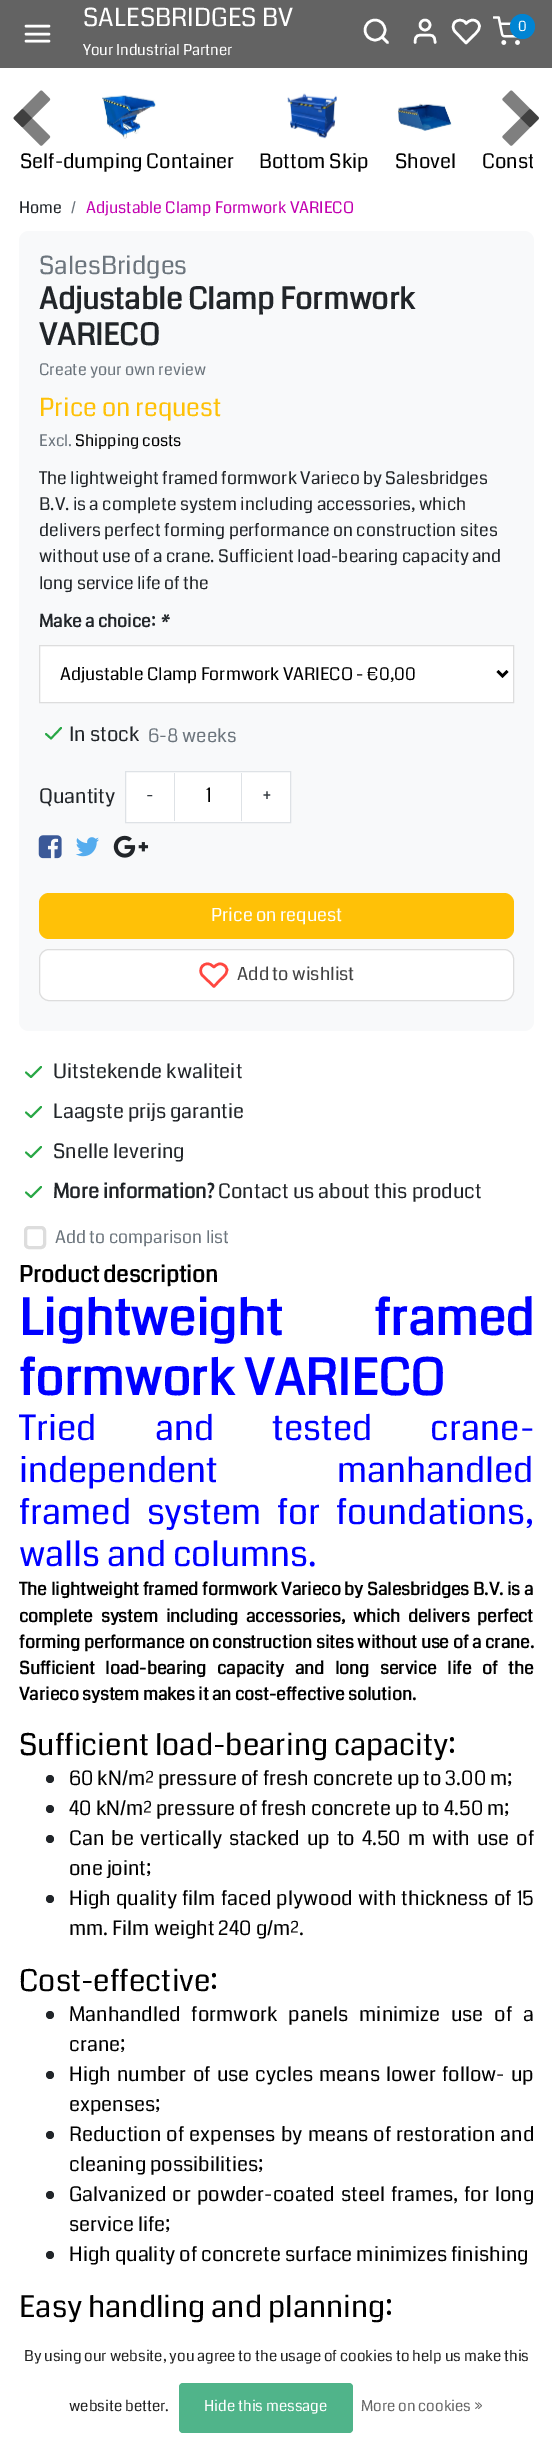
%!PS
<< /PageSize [552 2457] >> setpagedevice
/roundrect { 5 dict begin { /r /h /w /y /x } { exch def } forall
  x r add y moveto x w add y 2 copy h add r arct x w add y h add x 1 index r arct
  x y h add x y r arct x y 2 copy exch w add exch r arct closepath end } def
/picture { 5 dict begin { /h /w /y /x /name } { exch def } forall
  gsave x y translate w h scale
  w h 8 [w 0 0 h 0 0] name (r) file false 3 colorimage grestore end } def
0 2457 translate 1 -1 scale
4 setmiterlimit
1 setgray
0 0 552 2457 rectfill
0.388 setgray
0 0 552 68 rectfill
1 setgray
2.5 setlinewidth
1 setlinecap
1 setlinejoin
newpath 26 34 moveto 49 34 lineto 26 26 moveto 49 26 lineto 26 41 moveto 49 41 lineto stroke
/Coda-Regular [25 0 0 -25 0 0] selectfont
83 26 moveto (SALESBRIDGES BV) show
/Coda-Regular [15 0 0 -15 0 0] selectfont
83 55 moveto (Your Industrial Partner) show
0 setlinecap
0 setlinejoin
newpath 375 30 10 0 360 arc closepath stroke
1 setlinecap
1 setlinejoin
newpath 387.5 42.5 moveto 382 37 lineto 435 42.5 moveto 435 34.5 432 35 425 35 curveto 418 35 415 34.5 415 42.5 curveto stroke
0 setlinecap
0 setlinejoin
newpath 425 25 5 0 360 arc closepath stroke
1 setlinecap
1 setlinejoin
newpath 477.5 22 moveto 473.5 18.5 469.5 20 466 23.5 curveto 465 22 lineto 462 19.5 458 19.5 455 22 curveto 452.5 24.5 452.5 29 455 31.5 curveto 466 43 lineto 472.5 36.5 lineto 476.5 32.5 483 27.5 477.5 22 curveto closepath stroke
(img1.rgb) 493 16 27 29 picture
0 0.518 0.827 setrgbcolor
newpath 522.5 26.5 12.5 0 360 arc closepath fill
/Coda-Regular [14 0 0 -14 0 0] selectfont
1 setgray
518 31 moveto (0) show
(img2.rgb) 13 90 38 56 picture
(img3.rgb) 502 90 37 56 picture
(img4.rgb) 102 95 54 44 picture
/Coda-Regular [20 0 0 -20 0 0] selectfont
0 setgray
20 168 moveto (Self-dumping Container) show
(img5.rgb) 287 93 51 46 picture
259 168 moveto (Bottom Skip) show
(img6.rgb) 398 103 54 28 picture
395 168 moveto (Shovel) show
gsave
20 84 513 92 rectclip
482 168 moveto (Const) show
grestore
/Coda-Regular [16 0 0 -16 0 0] selectfont
0.129 0.145 0.161 setrgbcolor
19 213 moveto (Home) show
0.424 0.459 0.49 setrgbcolor
71 213 moveto (/) show
0.761 0 0.69 setrgbcolor
86 213 moveto (Adjustable Clamp Formwork VARIECO) show
0.973 0.976 0.98 setrgbcolor
19 231 515 800 10 roundrect fill
/Coda-Regular [25 0 0 -25 0 0] selectfont
0.424 0.459 0.49 setrgbcolor
39 274 moveto (SalesBridges) show
/Coda-Bold [30 0 0 -30 0 0] selectfont
0.129 0.145 0.161 setrgbcolor
39 309 moveto (Adjustable Clamp Formwork) show
39 345 moveto (VARIECO) show
/Coda-Regular [16 0 0 -16 0 0] selectfont
0.424 0.459 0.49 setrgbcolor
39 375 moveto (Create your own review) show
/Coda-Regular [25 0 0 -25 0 0] selectfont
1 0.757 0.027 setrgbcolor
39 416 moveto (Price on request) show
/Coda-Regular [16 0 0 -16 0 0] selectfont
0.424 0.459 0.49 setrgbcolor
39 446 moveto (Excl.) show
0 setgray
75 446 moveto (Shipping costs) show
/Coda-Regular [17.5 0 0 -17.5 0 0] selectfont
0.129 0.145 0.161 setrgbcolor
39 484 moveto (The lightweight framed formwork Varieco by Salesbridges) show
39 510 moveto (B.V. is a complete system including accessories, which) show
39 536 moveto (delivers perfect forming performance on construction sites) show
39 562 moveto (without use of a crane. Sufficient load-bearing capacity and) show
39 589 moveto (long service life of the) show
/Coda-Bold [17.5 0 0 -17.5 0 0] selectfont
39 627 moveto (Make a choice:) show
/Coda-BoldItalic [17.5 0 0 -17.5 0 0] selectfont
159 627 moveto (*) show
1 setgray
newpath 39.5 645.5 moveto 513.5 645.5 lineto 513.5 702.5 lineto 39.5 702.5 lineto closepath gsave fill grestore
0.867 setgray
1 setlinewidth
0 setlinecap
0 setlinejoin
stroke
0 setgray
2.5 setlinewidth
newpath 497.5 671 moveto 502.5 676 lineto 507.5 671 lineto stroke
/Coda-Regular [17.5 0 0 -17.5 0 0] selectfont
60 680 moveto (Adjustable Clamp Formwork VARIECO - €0,00) show
0.157 0.655 0.271 setrgbcolor
1.9 setlinewidth
1 setlinecap
1 setlinejoin
newpath 61 728 moveto 51 738.5 lineto 46 734 lineto stroke
/Coda-Regular [20 0 0 -20 0 0] selectfont
0.129 0.145 0.161 setrgbcolor
69 741 moveto (In stock) show
/Coda-Regular [18.75 0 0 -18.75 0 0] selectfont
0.424 0.459 0.49 setrgbcolor
148 742 moveto (6-8 weeks) show
/Coda-Regular [20 0 0 -20 0 0] selectfont
0.129 0.145 0.161 setrgbcolor
39 803 moveto (Quantity) show
1 setgray
newpath 125.5 771.5 moveto 290.5 771.5 lineto 290.5 822.5 lineto 125.5 822.5 lineto closepath gsave fill grestore
0.871 0.886 0.902 setrgbcolor
1 setlinewidth
0 setlinecap
0 setlinejoin
stroke
174 773 1 48 rectfill
/Coda-Regular [18 0 0 -18 0 0] selectfont
0.204 0.227 0.251 setrgbcolor
146 801 moveto (-) show
/Coda-Regular [20 0 0 -20 0 0] selectfont
0 setgray
206 802 moveto (1) show
0.871 0.886 0.902 setrgbcolor
241 773 1 48 rectfill
/Coda-Regular [18 0 0 -18 0 0] selectfont
0.204 0.227 0.251 setrgbcolor
263 801 moveto (+) show
(img7.rgb) 38 835 24 24 picture
(img8.rgb) 75 837 24 20 picture
(img9.rgb) 113 835 36 23 picture
1 0.757 0.027 setrgbcolor
39 893 475 46 10 roundrect fill
1 setgray
211 921 moveto (Price on request) show
39.5 949.5 474 51 9.5 roundrect gsave fill grestore
0.867 setgray
stroke
1 0.278 0.251 setrgbcolor
2.5 setlinewidth
1 setlinecap
1 setlinejoin
newpath 225 966 moveto 221 962 217 964 214 967 curveto 212.5 966 lineto 209.5 963 205.5 963 202.5 966 curveto 200 968.5 200 973 202.5 975.5 curveto 214 986.5 lineto 220 980 lineto 224 976.5 230.5 971 225 966 curveto closepath stroke
0.255 setgray
237 980 moveto (Add to wishlist) show
0.157 0.655 0.271 setrgbcolor
1.9 setlinewidth
newpath 41 1067 moveto 31 1077 lineto 26 1072.5 lineto 41 1107 moveto 31 1117 lineto 26 1112.5 lineto stroke
/Coda-Regular [20 0 0 -20 0 0] selectfont
0.129 0.145 0.161 setrgbcolor
53 1078 moveto (Uitstekende kwaliteit) show
53 1118 moveto (Laagste prijs garantie) show
0.157 0.655 0.271 setrgbcolor
newpath 41 1147 moveto 31 1157 lineto 26 1152.5 lineto 41 1187 moveto 31 1197 lineto 26 1192.5 lineto stroke
0.129 0.145 0.161 setrgbcolor
53 1158 moveto (Snelle levering) show
/Coda-Bold [20 0 0 -20 0 0] selectfont
53 1198 moveto (More information?) show
/Coda-Regular [20 0 0 -20 0 0] selectfont
218 1198 moveto (Contact us about this product) show
0.867 setgray
3 setlinewidth
0 setlinecap
0 setlinejoin
25.5 1227.5 19 20 3.5 roundrect stroke
/Coda-Regular [17.5 0 0 -17.5 0 0] selectfont
0.424 0.459 0.49 setrgbcolor
55 1243 moveto (Add to comparison list) show
/Coda-Bold [22.5 0 0 -22.5 0 0] selectfont
0 setgray
19 1282 moveto (Product description) show
/Coda-Bold [50 0 0 -50 0 0] selectfont
0 0 1 setrgbcolor
19 1335 moveto 82 0 32 (Lightweight framed) widthshow
19 1395 moveto (formwork VARIECO) show
gsave
19 1289 515 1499 rectclip
/Coda-Regular [35 0 0 -35 0 0] selectfont
19 1440 moveto 51.5 0 32 (Tried and tested crane-) widthshow
grestore
/Coda-Regular [35 0 0 -35 0 0] selectfont
19 1482 moveto 112 0 32 (independent manhandled) widthshow
19 1524 moveto 9 0 32 (framed system for foundations,) widthshow
19 1566 moveto (walls and columns.) show
/Coda-Bold [17.5 0 0 -17.5 0 0] selectfont
0 setgray
19 1595 moveto 0.25 0 32 (The lightweight framed formwork Varieco by Salesbridges B.V. is a) widthshow
19 1622 moveto 4.25 0 32 (complete system including accessories, which delivers perfect) widthshow
19 1648 moveto 0.25 0 32 (forming performance on construction sites without use of a crane.) widthshow
19 1674 moveto 7.25 0 32 (Sufficient load-bearing capacity and long service life of the) widthshow
19 1700 moveto (Varieco system makes it an cost-effective solution.) show
/Coda-Regular [30 0 0 -30 0 0] selectfont
19 1755 moveto (Sufficient load-bearing capacity:) show
0.129 0.145 0.161 setrgbcolor
newpath 50 1779 4 0 360 arc closepath fill
/Coda-Regular [20 0 0 -20 0 0] selectfont
0 setgray
69 1785 moveto (60 kN/m² pressure of fresh concrete up to 3.00 m;) show
0.129 0.145 0.161 setrgbcolor
newpath 50 1809 4 0 360 arc closepath fill
0 setgray
69 1815 moveto (40 kN/m² pressure of fresh concrete up to 4.50 m;) show
0.129 0.145 0.161 setrgbcolor
newpath 50 1839 4 0 360 arc closepath fill
0 setgray
69 1845 moveto 2.9 0 32 (Can be vertically stacked up to 4.50 m with use of) widthshow
69 1875 moveto (one joint;) show
0.129 0.145 0.161 setrgbcolor
newpath 50 1899 4 0 360 arc closepath fill
0 setgray
69 1905 moveto 1.25 0 32 (High quality film faced plywood with thickness of 15) widthshow
69 1935 moveto (mm. Film weight 240 g/m².) show
/Coda-Regular [30 0 0 -30 0 0] selectfont
19 1991 moveto (Cost-effective:) show
0.129 0.145 0.161 setrgbcolor
newpath 50 2015 4 0 360 arc closepath fill
/Coda-Regular [20 0 0 -20 0 0] selectfont
0 setgray
69 2021 moveto 7 0 32 (Manhandled formwork panels minimize use of a) widthshow
69 2051 moveto (crane;) show
0.129 0.145 0.161 setrgbcolor
newpath 50 2075 4 0 360 arc closepath fill
0 setgray
69 2081 moveto 2.25 0 32 (High number of use cycles means lower follow- up) widthshow
69 2111 moveto (expenses;) show
0.129 0.145 0.161 setrgbcolor
newpath 50 2135 4 0 360 arc closepath fill
0 setgray
69 2141 moveto 1.25 0 32 (Reduction of expenses by means of restoration and) widthshow
69 2171 moveto (cleaning possibilities;) show
0.129 0.145 0.161 setrgbcolor
newpath 50 2195 4 0 360 arc closepath fill
0 setgray
69 2201 moveto 2 0 32 (Galvanized or powder-coated steel frames, for long) widthshow
69 2231 moveto (service life;) show
0.129 0.145 0.161 setrgbcolor
newpath 50 2255 4 0 360 arc closepath fill
0 setgray
69 2261 moveto (High quality of concrete surface minimizes finishing) show
/Coda-Regular [30 0 0 -30 0 0] selectfont
19 2317 moveto (Easy handling and planning:) show
/Coda-Regular [15 0 0 -15 0 0] selectfont
0.133 setgray
24 2361 moveto (By using our website, you agree to the usage of cookies to help us make this) show
69 2411 moveto (website better.) show
0.314 0.706 0.541 setrgbcolor
179 2383 174 50 4 roundrect fill
1 setgray
204 2411 moveto (Hide this message) show
0.4 setgray
361 2411 moveto (More on cookies ») show
showpage
